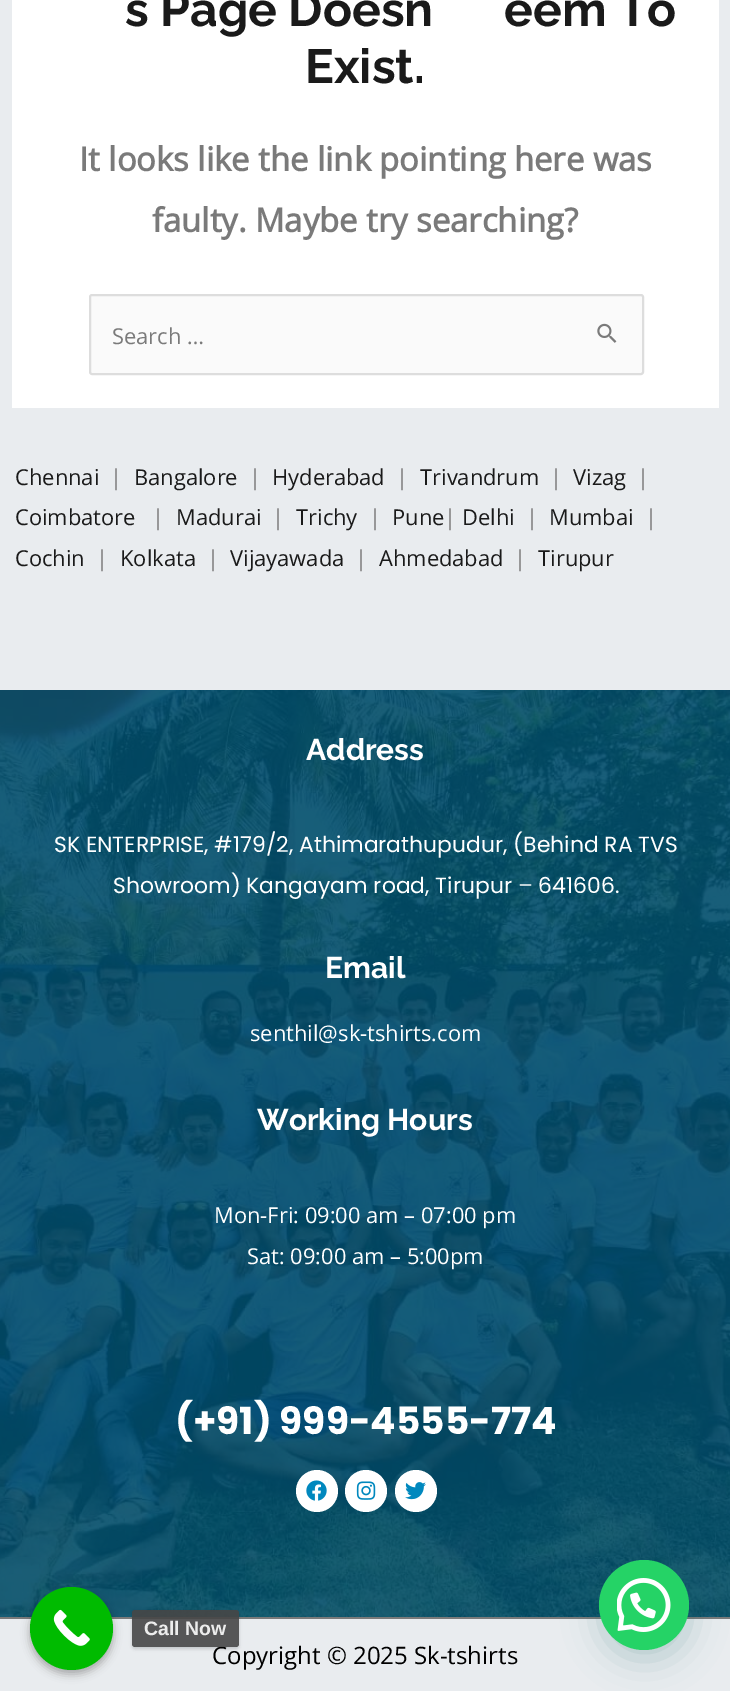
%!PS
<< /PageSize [730 1691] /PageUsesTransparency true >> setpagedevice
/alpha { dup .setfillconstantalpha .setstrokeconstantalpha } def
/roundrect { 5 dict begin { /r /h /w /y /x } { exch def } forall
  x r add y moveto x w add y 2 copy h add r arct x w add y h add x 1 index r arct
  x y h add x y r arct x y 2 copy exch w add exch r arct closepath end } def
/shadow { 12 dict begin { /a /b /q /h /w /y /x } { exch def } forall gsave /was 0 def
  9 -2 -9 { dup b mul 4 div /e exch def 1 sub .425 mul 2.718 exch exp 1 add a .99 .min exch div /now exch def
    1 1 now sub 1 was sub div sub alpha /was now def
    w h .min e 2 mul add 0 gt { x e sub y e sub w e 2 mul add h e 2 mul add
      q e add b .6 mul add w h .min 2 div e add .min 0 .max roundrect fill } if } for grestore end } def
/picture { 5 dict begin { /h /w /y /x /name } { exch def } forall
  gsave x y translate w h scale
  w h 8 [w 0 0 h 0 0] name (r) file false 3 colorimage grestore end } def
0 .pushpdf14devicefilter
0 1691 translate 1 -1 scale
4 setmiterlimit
0.914 0.925 0.937 setrgbcolor
0 0 730 1691 rectfill
1 setgray
12 0 707 408 rectfill
/Raleway-Thin [48 0 0 -48 0 0] selectfont
0.102 setgray
125 26 moveto (s Page Doesn) show
504 26 moveto (eem To) show
305 83 moveto (Exist.) show
/OpenSans-Bold [32.8 0 0 -32.8 0 0] selectfont
0.478 setgray
79 171 moveto (It looks like the link pointing here was) show
152 232 moveto (faulty. Maybe try searching?) show
0.98 setgray
90 295 553 79 2 roundrect gsave fill grestore
0.867 setgray
2 setlinewidth
stroke
/OpenSans-Regular [21.9 0 0 -21.9 0 0] selectfont
0.478 setgray
112 344 moveto (Search …) show
(img1.rgb) 597 323 20 20 picture
0.102 setgray
15 485 moveto (Chennai) show
0.478 setgray
110 485 moveto (|) show
0.102 setgray
134 485 moveto (Bangalore) show
0.478 setgray
249 485 moveto (|) show
0.102 setgray
272 485 moveto (Hyderabad) show
0.478 setgray
396 485 moveto (|) show
0.102 setgray
420 485 moveto (Trivandrum) show
0.478 setgray
550 485 moveto (|) show
0.102 setgray
573 485 moveto (Vizag) show
0.478 setgray
637 485 moveto (|) show
0.102 setgray
15 525 moveto (Coimbatore) show
0.478 setgray
152 525 moveto (|) show
0.102 setgray
176 525 moveto (Madurai) show
0.478 setgray
272 525 moveto (|) show
0.102 setgray
296 525 moveto (Trichy) show
0.478 setgray
369 525 moveto (|) show
0.102 setgray
392 525 moveto (Pune) show
0.478 setgray
444 525 moveto (|) show
0.102 setgray
462 525 moveto (Delhi) show
0.478 setgray
526 525 moveto (|) show
0.102 setgray
549 525 moveto (Mumbai) show
0.478 setgray
645 525 moveto (|) show
0.102 setgray
15 566 moveto (Cochin) show
0.478 setgray
96 566 moveto (|) show
0.102 setgray
120 566 moveto (Kolkata) show
0.478 setgray
207 566 moveto (|) show
0.102 setgray
230 566 moveto (Vijayawada) show
0.478 setgray
355 566 moveto (|) show
0.102 setgray
379 566 moveto (Ahmedabad) show
0.478 setgray
514 566 moveto (|) show
0.102 setgray
538 566 moveto (Tirupur) show
(img2.rgb) 0 690 730 927 picture
/Raleway-Thin [30 0 0 -30 0 0] selectfont
1 setgray
306 760 moveto (Address) show
/Poppins-Regular [21.9 0 0 -21.9 0 0] selectfont
54 852 moveto (SK ENTERPRISE, #179/2, Athimarathupudur, \(Behind RA TVS) show
113 893 moveto (Showroom\) Kangayam road, Tirupur – 641606.) show
/Raleway-Thin [30 0 0 -30 0 0] selectfont
325 978 moveto (Email) show
/OpenSans-Regular [21.9 0 0 -21.9 0 0] selectfont
250 1041 moveto (senthil@sk-tshirts.com) show
/Raleway-Thin [30 0 0 -30 0 0] selectfont
257 1130 moveto (Working Hours) show
/OpenSans-Regular [21.9 0 0 -21.9 0 0] selectfont
214 1223 moveto (Mon-Fri: 09:00 am – 07:00 pm) show
247 1264 moveto (Sat: 09:00 am – 5:00pm) show
/Poppins-Bold [37.5 0 0 -37.5 0 0] selectfont
175 1434 moveto (\(+91\) 999-4555-774) show
newpath 317 1491 21 0 360 arc closepath fill
(img3.rgb) 306 1480 21 21 picture
newpath 366 1491 21 0 360 arc closepath fill
(img4.rgb) 356 1481 20 19 picture
newpath 416 1491 21 0 360 arc closepath fill
(img5.rgb) 405 1482 21 18 picture
0.478 setgray
0 1617 730 2 rectfill
/OpenSans-Regular [24 0 0 -24 0 0] selectfont
0 setgray
212 1664 moveto (Copyright © 2025 Sk-tshirts) show
30 1592 83 82 41 4.5 0.3 shadow
0 0.733 0 setrgbcolor
newpath 71.5 1628.5 41.5 0 360 arc closepath fill
(img6.rgb) 53 1609 37 37 picture
gsave
newpath 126 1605 moveto 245 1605 lineto 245 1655 lineto 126 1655 lineto closepath 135 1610 moveto 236 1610 lineto 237.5 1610 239 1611.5 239 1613 curveto 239 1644 lineto 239 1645.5 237.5 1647 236 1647 curveto 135 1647 lineto 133.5 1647 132 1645.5 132 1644 curveto 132 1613 lineto 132 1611.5 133.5 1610 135 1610 curveto closepath eoclip newpath
0 setgray
132 1611 107 38 3 1.5 0.15 shadow
grestore
0.9 alpha
0.275 setgray
132 1610 107 37 3 roundrect fill
/LiberationSans-Bold [19.5 0 0 -19.5 0 0] selectfont
1 alpha
0.925 setgray
144 1635 moveto (Call Now) show
0.027 0.369 0.329 setrgbcolor
600 1569 90 90 45 18 0.24 shadow
0.145 0.827 0.4 setrgbcolor
newpath 644 1605 45 0 360 arc closepath fill
(img7.rgb) 617 1578 54 54 picture
.poppdf14devicefilter showpage
